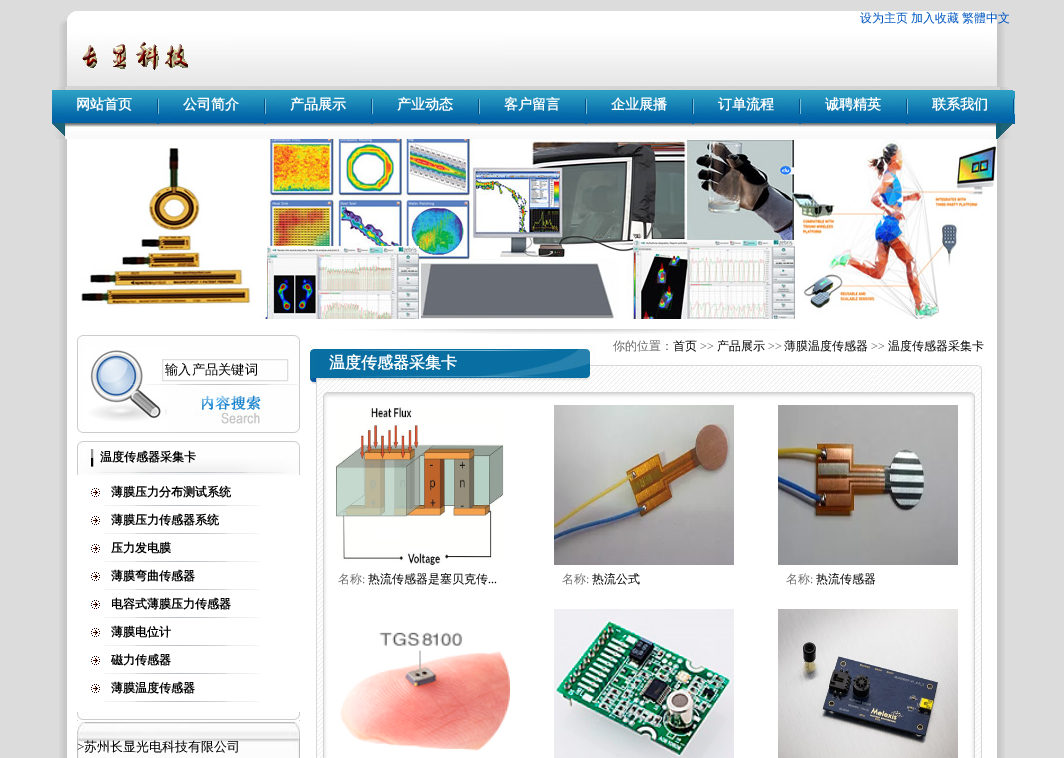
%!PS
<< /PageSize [1064 758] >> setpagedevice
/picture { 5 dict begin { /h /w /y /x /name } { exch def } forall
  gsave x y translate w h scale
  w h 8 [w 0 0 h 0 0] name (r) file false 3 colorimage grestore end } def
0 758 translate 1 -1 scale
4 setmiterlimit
0.863 setgray
0 0 1064 758 rectfill
(img1.rgb) 59 11 946 76 picture
/WenQuanYiZenHei-Medium [12 0 0 -12 0 0] selectfont
0 0.341 0.761 setrgbcolor
860 22 moveto (设为主页) show
911 22 moveto (加入收藏) show
962 22 moveto (繁體中文) show
(img2.rgb) 82 42 106 28 picture
(img3.rgb) 52 87 961 52 picture
/WenQuanYiZenHei-Bold [14 0 0 -14 0 0] selectfont
1 setgray
76 109 moveto (网站首页) show
(img4.rgb) 157 99 2 25 picture
183 109 moveto (公司简介) show
(img4.rgb) 264 99 2 25 picture
290 109 moveto (产品展示) show
(img4.rgb) 371 99 2 25 picture
397 109 moveto (产业动态) show
(img4.rgb) 478 99 2 25 picture
504 109 moveto (客户留言) show
(img4.rgb) 585 99 2 25 picture
611 109 moveto (企业展播) show
(img4.rgb) 692 99 2 25 picture
718 109 moveto (订单流程) show
(img4.rgb) 799 99 2 25 picture
825 109 moveto (诚聘精英) show
(img4.rgb) 906 99 2 25 picture
932 109 moveto (联系我们) show
(img5.rgb) 1013 91 2 33 picture
(img6.rgb) 59 139 946 619 picture
(img7.rgb) 81 139 916 180 picture
(img8.rgb) 77 335 223 98 picture
0.871 setgray
162.5 359.5 125 21 rectstroke
/WenQuanYiZenHei-Medium [13.25 0 0 -13.25 0 0] selectfont
0 setgray
165 374 moveto (输入产品关键词) show
(img9.rgb) 194 392 72 32 picture
(img10.rgb) 77 441 223 34 picture
/WenQuanYiZenHei-Bold [12 0 0 -12 0 0] selectfont
100 461 moveto (温度传感器采集卡) show
(img11.rgb) 91 488 9 9 picture
111 496 moveto (薄膜压力分布测试系统) show
(img12.rgb) 103 505 156 1 picture
(img11.rgb) 91 516 9 9 picture
111 524 moveto (薄膜压力传感器系统) show
(img12.rgb) 103 533 156 1 picture
(img11.rgb) 91 544 9 9 picture
111 552 moveto (压力发电膜) show
(img12.rgb) 103 561 156 1 picture
(img11.rgb) 91 572 9 9 picture
111 580 moveto (薄膜弯曲传感器) show
(img12.rgb) 103 589 156 1 picture
(img11.rgb) 91 600 9 9 picture
111 608 moveto (电容式薄膜压力传感器) show
(img12.rgb) 103 617 156 1 picture
(img11.rgb) 91 628 9 9 picture
111 636 moveto (薄膜电位计) show
(img12.rgb) 103 645 156 1 picture
(img11.rgb) 91 656 9 9 picture
111 664 moveto (磁力传感器) show
(img12.rgb) 103 673 156 1 picture
(img11.rgb) 91 684 9 9 picture
111 692 moveto (薄膜温度传感器) show
(img12.rgb) 103 701 156 1 picture
(img13.rgb) 77 712 223 9 picture
(img14.rgb) 77 722 223 36 picture
/LiberationSerif-Regular [13 0 0 -13 0 0] selectfont
77 751 moveto (>) show
/WenQuanYiZenHei-Medium [13 0 0 -13 0 0] selectfont
84 751 moveto (苏州长显光电科技有限公司) show
(img15.rgb) 308 329 677 72 picture
/WenQuanYiZenHei-Medium [12 0 0 -12 0 0] selectfont
0.4 setgray
613 350 moveto (你的位置：) show
0 setgray
673 350 moveto (首页) show
/LiberationSerif-Regular [12 0 0 -12 0 0] selectfont
0.4 setgray
700 350 moveto (>>) show
/WenQuanYiZenHei-Medium [12 0 0 -12 0 0] selectfont
0 setgray
717 350 moveto (产品展示) show
/LiberationSerif-Regular [12 0 0 -12 0 0] selectfont
0.4 setgray
768 350 moveto (>>) show
/WenQuanYiZenHei-Medium [12 0 0 -12 0 0] selectfont
0 setgray
784 350 moveto (薄膜温度传感器) show
/LiberationSerif-Regular [12 0 0 -12 0 0] selectfont
0.4 setgray
871 350 moveto (>>) show
/WenQuanYiZenHei-Medium [12 0 0 -12 0 0] selectfont
0 setgray
888 350 moveto (温度传感器采集卡) show
/WenQuanYiZenHei-Bold [16 0 0 -16 0 0] selectfont
1 setgray
329 368 moveto (温度传感器采集卡) show
(img16.rgb) 316 401 666 357 picture
(img17.rgb) 335 407 169 158 picture
/WenQuanYiZenHei-Medium [12 0 0 -12 0 0] selectfont
0.435 setgray
338 583 moveto (名称) show
/LiberationSerif-Regular [12 0 0 -12 0 0] selectfont
362 583 moveto (:) show
/WenQuanYiZenHei-Medium [12 0 0 -12 0 0] selectfont
0 setgray
368 583 moveto (热流传感器是塞贝克传) show
/LiberationSerif-Regular [12 0 0 -12 0 0] selectfont
488 583 moveto (...) show
(img18.rgb) 554 405 180 160 picture
/WenQuanYiZenHei-Medium [12 0 0 -12 0 0] selectfont
0.435 setgray
562 583 moveto (名称) show
/LiberationSerif-Regular [12 0 0 -12 0 0] selectfont
586 583 moveto (:) show
/WenQuanYiZenHei-Medium [12 0 0 -12 0 0] selectfont
0 setgray
592 583 moveto (热流公式) show
(img19.rgb) 778 405 180 160 picture
0.435 setgray
786 583 moveto (名称) show
/LiberationSerif-Regular [12 0 0 -12 0 0] selectfont
810 583 moveto (:) show
/WenQuanYiZenHei-Medium [12 0 0 -12 0 0] selectfont
0 setgray
816 583 moveto (热流传感器) show
(img20.rgb) 340 632 170 119 picture
(img21.rgb) 554 609 180 149 picture
(img22.rgb) 778 609 180 149 picture
showpage
